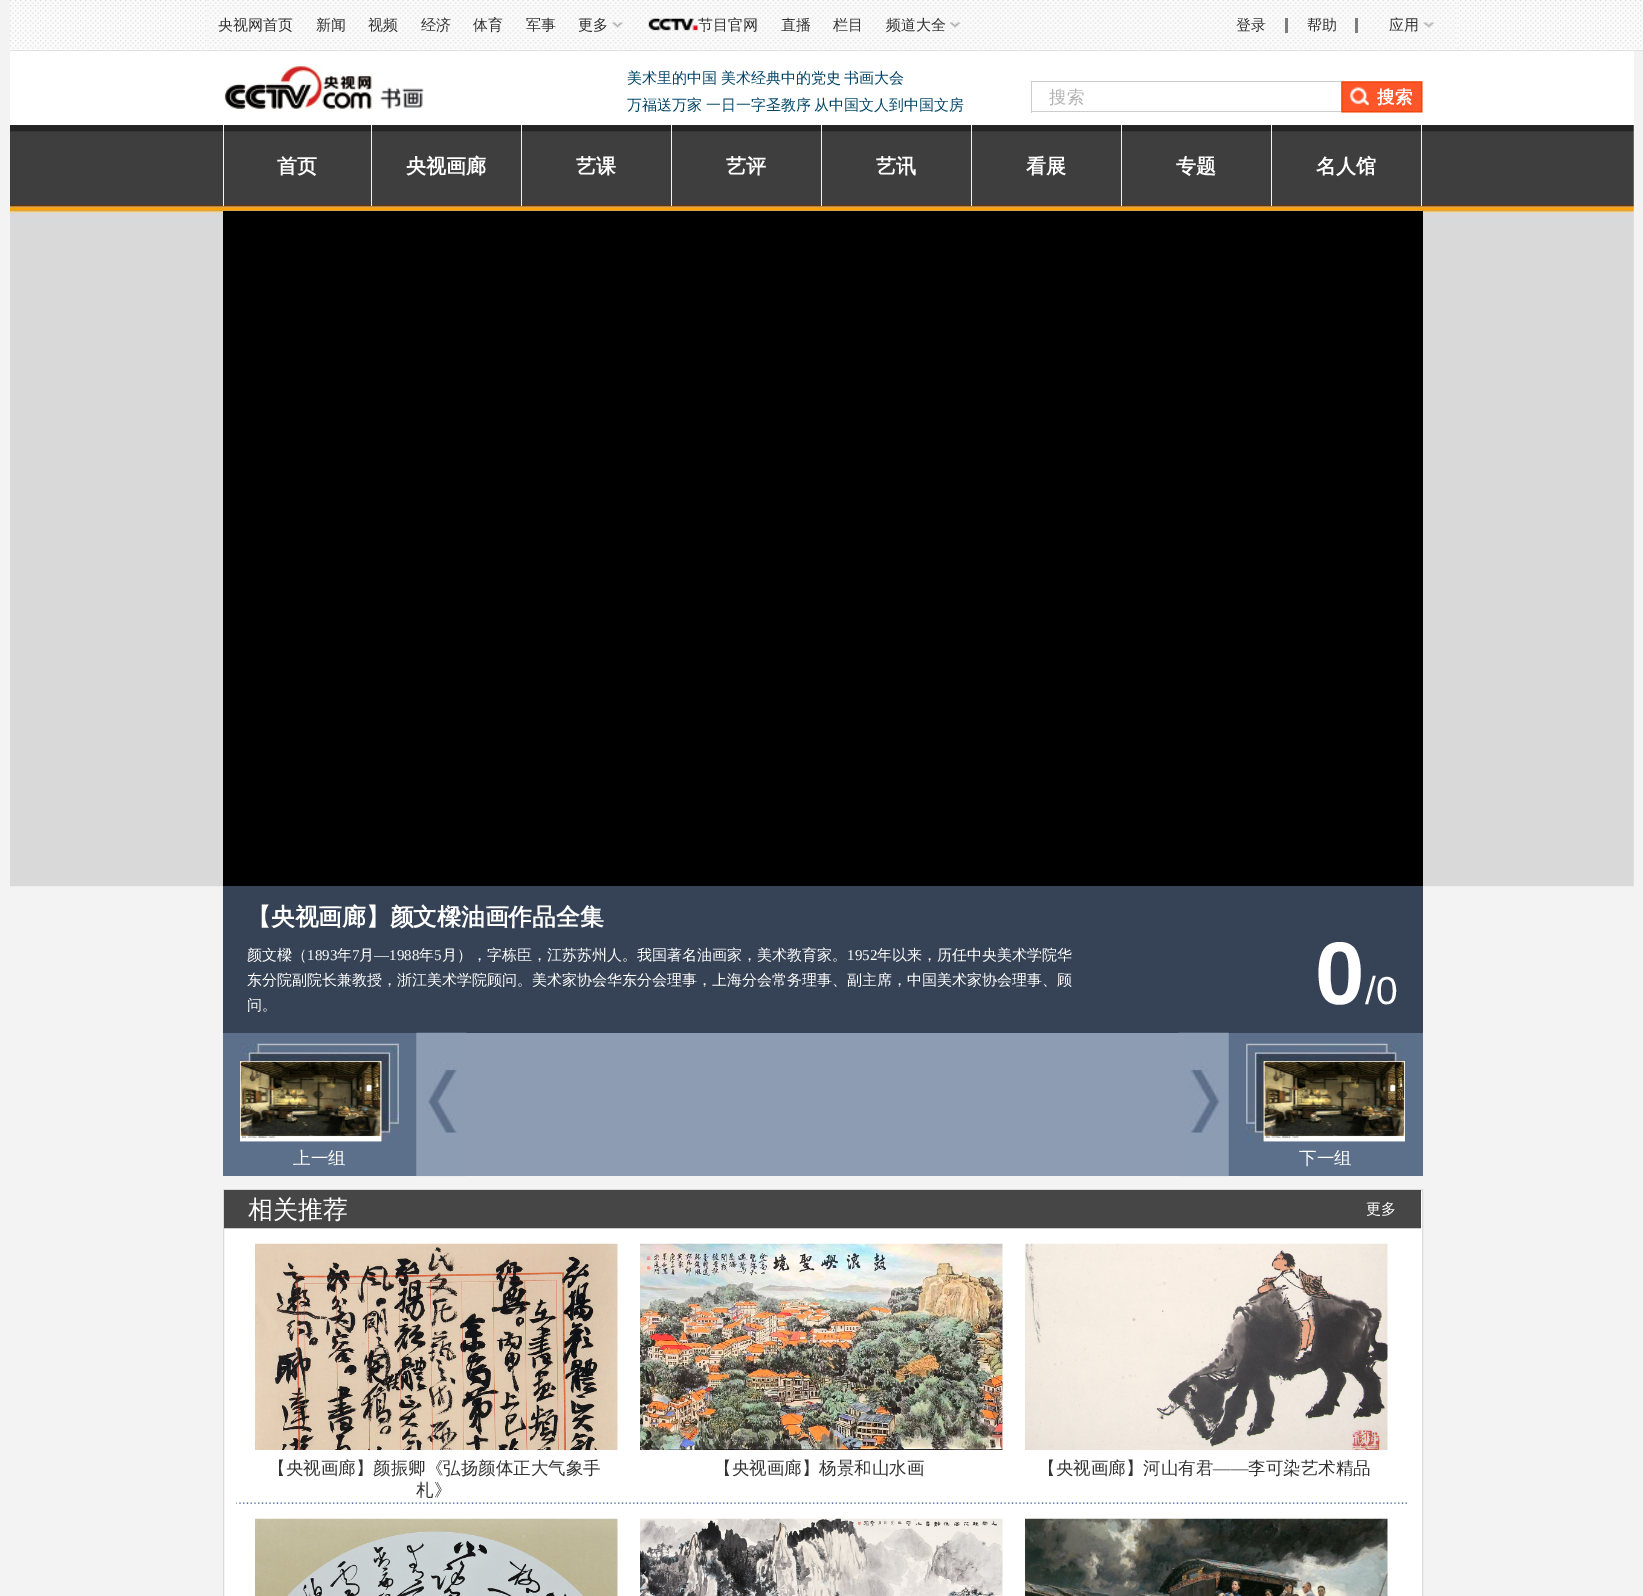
%!PS
<< /PageSize [1643 1596] /PageUsesTransparency true >> setpagedevice
/alpha { dup .setfillconstantalpha .setstrokeconstantalpha } def
/picture { 5 dict begin { /h /w /y /x /name } { exch def } forall
  gsave x y translate w h scale
  w h 8 [w 0 0 h 0 0] name (r) file false 3 colorimage grestore end } def
0 .pushpdf14devicefilter
0 1596 translate 1 -1 scale
4 setmiterlimit
0.953 setgray
0 0 1643 1596 rectfill
(img1.rgb) 10 0 1633 50 picture
0.882 setgray
10 50 1633 1 rectfill
(img2.rgb) 207 0 1251 49 picture
/WenQuanYiZenHei-Medium [15 0 0 -15 0 0] selectfont
0.2 setgray
218 30 moveto (央视网首页) show
316 30 moveto (新闻) show
368 30 moveto (视频) show
421 30 moveto (经济) show
473 30 moveto (体育) show
526 30 moveto (军事) show
578 30 moveto (更多) show
(img3.rgb) 612 22 11 6 picture
(img4.rgb) 648 18 50 13 picture
698 30 moveto (节目官网) show
781 30 moveto (直播) show
833 30 moveto (栏目) show
886 30 moveto (频道大全) show
(img5.rgb) 950 22 10 6 picture
1236 30 moveto (登录) show
0.62 alpha
0.196 setgray
1285 18 3 15 rectfill
1 alpha
0.2 setgray
1307 30 moveto (帮助) show
0.62 alpha
0.196 setgray
1355 18 3 15 rectfill
1 alpha
0.2 setgray
1389 30 moveto (应用) show
(img6.rgb) 1423 22 12 6 picture
1 setgray
10 51 1624 74 rectfill
(img7.rgb) 224 66 200 43 picture
0 0.267 0.4 setrgbcolor
627 83 moveto (美术里的中国) show
721 83 moveto (美术经典中的党史) show
844 83 moveto (书画大会) show
627 110 moveto (万福送万家) show
706 110 moveto (一日一字圣教序) show
814 110 moveto (从中国文人到中国文房) show
0.804 setgray
1031 81 310 1 rectfill
1031 111 310 1 rectfill
1031 81 1 32 rectfill
/WenQuanYiZenHei-Medium [17.5 0 0 -17.5 0 0] selectfont
0.698 setgray
1049 103 moveto (搜索) show
(img8.rgb) 1341 81 82 32 picture
/WenQuanYiZenHei-Bold [17.5 0 0 -17.5 0 0] selectfont
1 setgray
1377 103 moveto (搜索) show
(img9.rgb) 10 125 1624 762 picture
0.953 setgray
371 125 1 81 rectfill
223 125 1 81 rectfill
/WenQuanYiZenHei-Bold [20 0 0 -20 0 0] selectfont
1 setgray
277 173 moveto (首页) show
0.953 setgray
521 125 1 81 rectfill
1 setgray
406 173 moveto (央视画廊) show
0.953 setgray
671 125 1 81 rectfill
1 setgray
576 173 moveto (艺课) show
0.953 setgray
821 125 1 81 rectfill
1 setgray
726 173 moveto (艺评) show
0.953 setgray
971 125 1 81 rectfill
1 setgray
876 173 moveto (艺讯) show
0.953 setgray
1121 125 1 81 rectfill
1 setgray
1026 173 moveto (看展) show
0.953 setgray
1271 125 1 81 rectfill
1 setgray
1176 173 moveto (专题) show
0.953 setgray
1421 125 1 81 rectfill
1 setgray
1316 173 moveto (名人馆) show
0 setgray
223 211 1200 675 rectfill
0.212 0.263 0.337 setrgbcolor
223 886 1200 147 rectfill
/WenQuanYiZenHei-Bold [23.75 0 0 -23.75 0 0] selectfont
1 setgray
247 925 moveto (【央视画廊】颜文樑油画作品全集) show
/WenQuanYiZenHei-Medium [15 0 0 -15 0 0] selectfont
247 960 moveto (颜文樑（) show
/LiberationSerif-Regular [15 0 0 -15 0 0] selectfont
307 960 moveto (1893) show
/WenQuanYiZenHei-Medium [15 0 0 -15 0 0] selectfont
337 960 moveto (年) show
/LiberationSerif-Regular [15 0 0 -15 0 0] selectfont
352 960 moveto (7) show
/WenQuanYiZenHei-Medium [15 0 0 -15 0 0] selectfont
359 960 moveto (月) show
/LiberationSerif-Regular [15 0 0 -15 0 0] selectfont
374 960 moveto (—1988) show
/WenQuanYiZenHei-Medium [15 0 0 -15 0 0] selectfont
419 960 moveto (年) show
/LiberationSerif-Regular [15 0 0 -15 0 0] selectfont
434 960 moveto (5) show
/WenQuanYiZenHei-Medium [15 0 0 -15 0 0] selectfont
442 960 moveto (月），字栋臣，江苏苏州人。我国著名油画家，美术教育家。) show
/LiberationSerif-Regular [15 0 0 -15 0 0] selectfont
847 960 moveto (1952) show
/WenQuanYiZenHei-Medium [15 0 0 -15 0 0] selectfont
877 960 moveto (年以来，历任中央美术学院华) show
247 985 moveto (东分院副院长兼教授，浙江美术学院顾问。美术家协会华东分会理事，上海分会常务理事、副主席，中国美术家协会理事、顾) show
247 1010 moveto (问。) show
/LiberationSans-Bold [89 0 0 -89 0 0] selectfont
1315 1004 moveto (0) show
/LiberationSans-Regular [39 0 0 -39 0 0] selectfont
1365 1004 moveto (/0) show
0.361 0.439 0.545 setrgbcolor
223 1033 1200 143 rectfill
(img10.rgb) 240 1043 159 99 picture
(img11.rgb) 240 1061 142 81 picture
/WenQuanYiZenHei-Medium [17.5 0 0 -17.5 0 0] selectfont
1 setgray
293 1164 moveto (上一组) show
(img12.rgb) 416 1032 51 145 picture
(img13.rgb) 1178 1032 51 145 picture
0.553 0.612 0.702 setrgbcolor
466 1033 713 143 rectfill
(img14.rgb) 1246 1043 159 99 picture
(img15.rgb) 1263 1061 142 81 picture
1 setgray
1299 1164 moveto (下一组) show
newpath 223.5 1189.5 moveto 1422.5 1189.5 lineto 1422.5 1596.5 lineto 223.5 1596.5 lineto closepath gsave fill grestore
0.855 setgray
stroke
0.275 setgray
224 1190 1197 38 rectfill
0.8 setgray
224 1228 1197 1 rectfill
/WenQuanYiZenHei-Medium [25 0 0 -25 0 0] selectfont
1 setgray
248 1218 moveto (相关推荐) show
/WenQuanYiZenHei-Medium [15 0 0 -15 0 0] selectfont
1366 1214 moveto (更多) show
(img16.rgb) 255 1243 363 207 picture
/WenQuanYiZenHei-Medium [17.5 0 0 -17.5 0 0] selectfont
0.2 setgray
268 1474 moveto (【央视画廊】颜振卿《弘扬颜体正大气象手) show
416 1496 moveto (札》) show
(img17.rgb) 640 1243 363 207 picture
714 1474 moveto (【央视画廊】杨景和山水画) show
(img18.rgb) 1025 1243 363 207 picture
1038 1474 moveto (【央视画廊】河山有君) show
/LiberationSerif-Regular [17.5 0 0 -17.5 0 0] selectfont
1213 1474 moveto (——) show
/WenQuanYiZenHei-Medium [17.5 0 0 -17.5 0 0] selectfont
1248 1474 moveto (李可染艺术精品) show
(img19.rgb) 236 1502 1171 2 picture
(img20.rgb) 255 1518 363 78 picture
(img21.rgb) 640 1518 363 78 picture
(img22.rgb) 1025 1518 363 78 picture
.poppdf14devicefilter showpage
